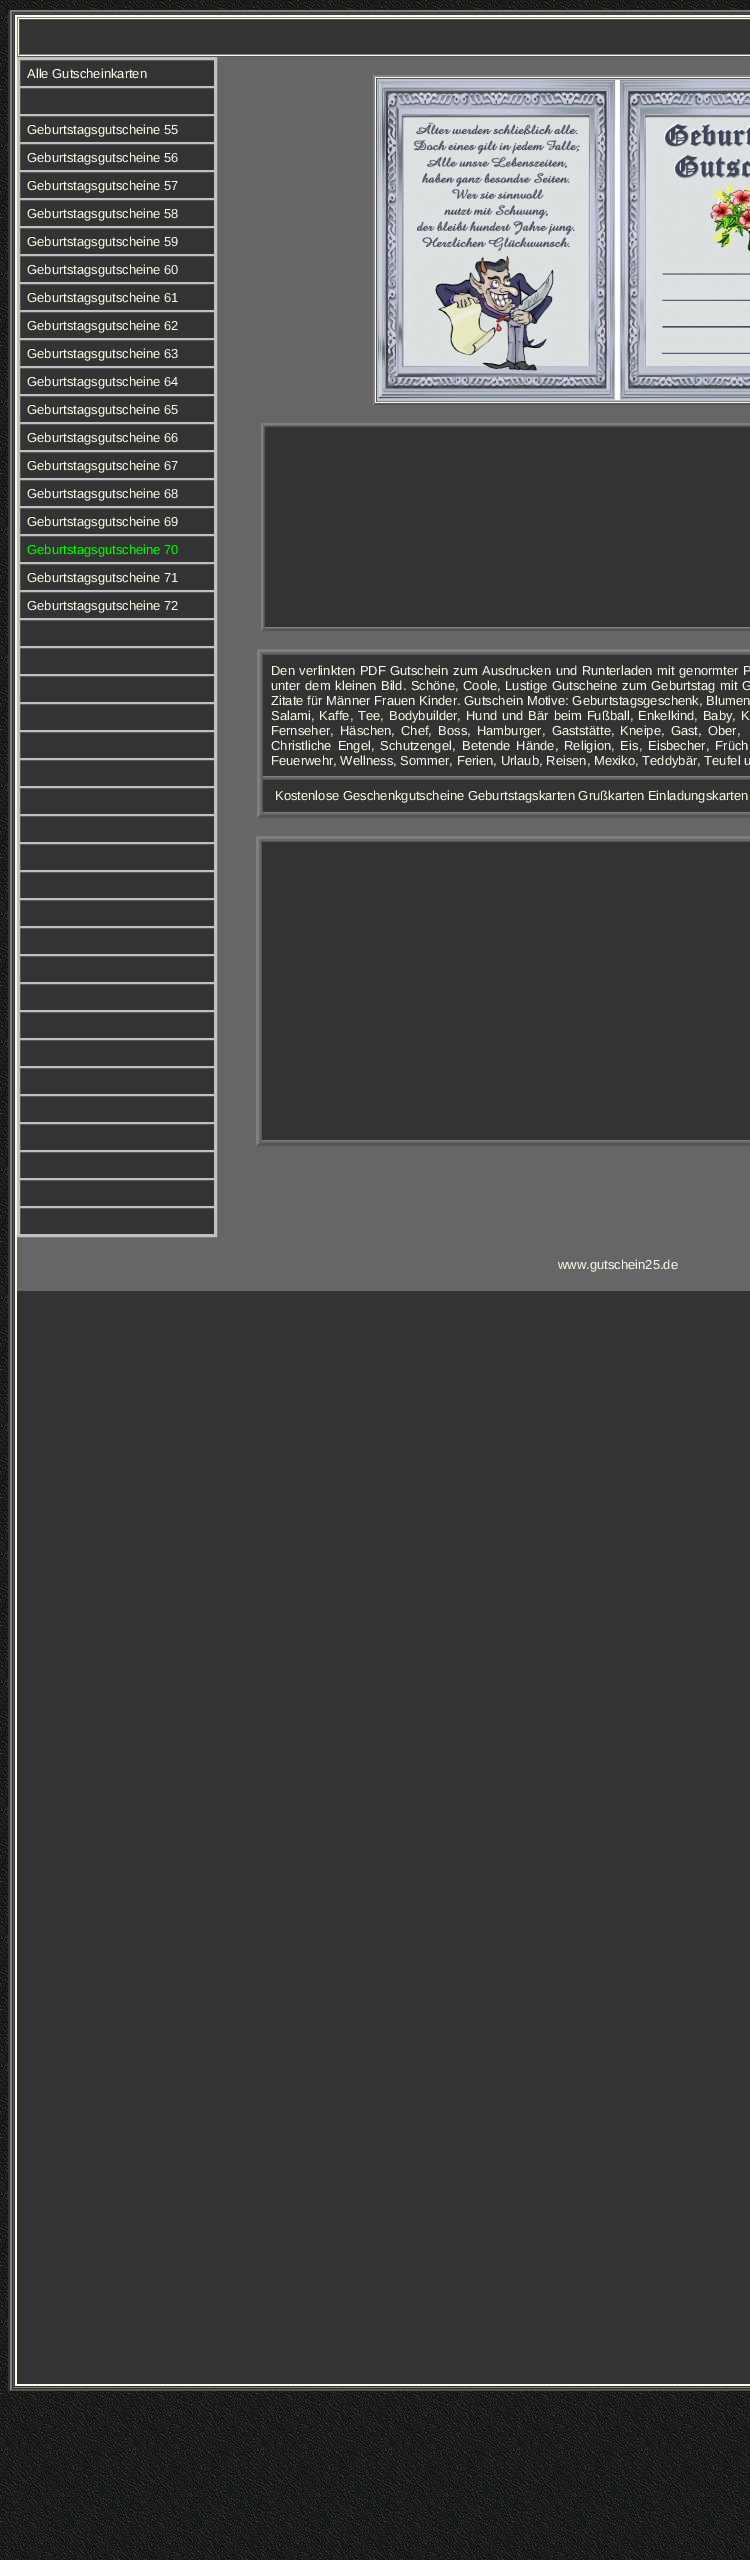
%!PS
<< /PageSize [750 2560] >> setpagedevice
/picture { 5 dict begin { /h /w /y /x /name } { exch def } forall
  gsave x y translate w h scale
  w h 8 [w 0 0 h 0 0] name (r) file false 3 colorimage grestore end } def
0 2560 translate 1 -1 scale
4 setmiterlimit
1 setgray
0 0 750 2560 rectfill
(img1.rgb) 0 0 750 2560 picture
0.2 setgray
8 10 742 2381 rectfill
0.502 setgray
newpath 10 10 moveto 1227 10 lineto 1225 12 lineto 12 12 lineto closepath fill
0.333 setgray
newpath 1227 2391 moveto 10 2391 lineto 12 2389 lineto 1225 2389 lineto closepath fill
0.502 setgray
newpath 10 2391 moveto 10 10 lineto 12 12 lineto 12 2389 lineto closepath fill
0.333 setgray
13 13 737 1 rectfill
0.502 setgray
13 2387 737 1 rectfill
0.333 setgray
13 13 1 2375 rectfill
1 0.984 0.918 setrgbcolor
15 15 735 2371 rectfill
0.4 setgray
17 57 733 1234 rectfill
0.502 setgray
17 17 733 1 rectfill
0.333 setgray
17 56 733 1 rectfill
0.502 setgray
17 17 1 40 rectfill
0.2 setgray
20 20 730 34 rectfill
0.333 setgray
19 19 731 1 rectfill
0.502 setgray
19 54 731 1 rectfill
0.333 setgray
19 19 1 36 rectfill
0.753 setgray
2 setlinewidth
18 58 198 1178 rectstroke
0.2 setgray
newpath 19.5 59.5 moveto 214.5 59.5 lineto 214.5 86.5 lineto 19.5 86.5 lineto closepath gsave fill grestore
0.753 setgray
1 setlinewidth
stroke
/LiberationSans-Regular [13 0 0 -13 0 0] selectfont
1 0.984 0.918 setrgbcolor
27 78 moveto (Alle Gutscheinkarten) show
0.2 setgray
newpath 19.5 87.5 moveto 214.5 87.5 lineto 214.5 114.5 lineto 19.5 114.5 lineto closepath gsave fill grestore
0.753 setgray
stroke
0.2 setgray
newpath 19.5 115.5 moveto 214.5 115.5 lineto 214.5 142.5 lineto 19.5 142.5 lineto closepath gsave fill grestore
0.753 setgray
stroke
1 0.984 0.918 setrgbcolor
27 134 moveto (Geburtstagsgutscheine 55) show
0.2 setgray
newpath 19.5 143.5 moveto 214.5 143.5 lineto 214.5 170.5 lineto 19.5 170.5 lineto closepath gsave fill grestore
0.753 setgray
stroke
1 0.984 0.918 setrgbcolor
27 162 moveto (Geburtstagsgutscheine 56) show
0.2 setgray
newpath 19.5 171.5 moveto 214.5 171.5 lineto 214.5 198.5 lineto 19.5 198.5 lineto closepath gsave fill grestore
0.753 setgray
stroke
1 0.984 0.918 setrgbcolor
27 190 moveto (Geburtstagsgutscheine 57) show
0.2 setgray
newpath 19.5 199.5 moveto 214.5 199.5 lineto 214.5 226.5 lineto 19.5 226.5 lineto closepath gsave fill grestore
0.753 setgray
stroke
1 0.984 0.918 setrgbcolor
27 218 moveto (Geburtstagsgutscheine 58) show
0.2 setgray
newpath 19.5 227.5 moveto 214.5 227.5 lineto 214.5 254.5 lineto 19.5 254.5 lineto closepath gsave fill grestore
0.753 setgray
stroke
1 0.984 0.918 setrgbcolor
27 246 moveto (Geburtstagsgutscheine 59) show
0.2 setgray
newpath 19.5 255.5 moveto 214.5 255.5 lineto 214.5 282.5 lineto 19.5 282.5 lineto closepath gsave fill grestore
0.753 setgray
stroke
1 0.984 0.918 setrgbcolor
27 274 moveto (Geburtstagsgutscheine 60) show
0.2 setgray
newpath 19.5 283.5 moveto 214.5 283.5 lineto 214.5 310.5 lineto 19.5 310.5 lineto closepath gsave fill grestore
0.753 setgray
stroke
1 0.984 0.918 setrgbcolor
27 302 moveto (Geburtstagsgutscheine 61) show
0.2 setgray
newpath 19.5 311.5 moveto 214.5 311.5 lineto 214.5 338.5 lineto 19.5 338.5 lineto closepath gsave fill grestore
0.753 setgray
stroke
1 0.984 0.918 setrgbcolor
27 330 moveto (Geburtstagsgutscheine 62) show
0.2 setgray
newpath 19.5 339.5 moveto 214.5 339.5 lineto 214.5 366.5 lineto 19.5 366.5 lineto closepath gsave fill grestore
0.753 setgray
stroke
1 0.984 0.918 setrgbcolor
27 358 moveto (Geburtstagsgutscheine 63) show
0.2 setgray
newpath 19.5 367.5 moveto 214.5 367.5 lineto 214.5 394.5 lineto 19.5 394.5 lineto closepath gsave fill grestore
0.753 setgray
stroke
1 0.984 0.918 setrgbcolor
27 386 moveto (Geburtstagsgutscheine 64) show
0.2 setgray
newpath 19.5 395.5 moveto 214.5 395.5 lineto 214.5 422.5 lineto 19.5 422.5 lineto closepath gsave fill grestore
0.753 setgray
stroke
1 0.984 0.918 setrgbcolor
27 414 moveto (Geburtstagsgutscheine 65) show
0.2 setgray
newpath 19.5 423.5 moveto 214.5 423.5 lineto 214.5 450.5 lineto 19.5 450.5 lineto closepath gsave fill grestore
0.753 setgray
stroke
1 0.984 0.918 setrgbcolor
27 442 moveto (Geburtstagsgutscheine 66) show
0.2 setgray
newpath 19.5 451.5 moveto 214.5 451.5 lineto 214.5 478.5 lineto 19.5 478.5 lineto closepath gsave fill grestore
0.753 setgray
stroke
1 0.984 0.918 setrgbcolor
27 470 moveto (Geburtstagsgutscheine 67) show
0.2 setgray
newpath 19.5 479.5 moveto 214.5 479.5 lineto 214.5 506.5 lineto 19.5 506.5 lineto closepath gsave fill grestore
0.753 setgray
stroke
1 0.984 0.918 setrgbcolor
27 498 moveto (Geburtstagsgutscheine 68) show
0.2 setgray
newpath 19.5 507.5 moveto 214.5 507.5 lineto 214.5 534.5 lineto 19.5 534.5 lineto closepath gsave fill grestore
0.753 setgray
stroke
1 0.984 0.918 setrgbcolor
27 526 moveto (Geburtstagsgutscheine 69) show
0.2 setgray
newpath 19.5 535.5 moveto 214.5 535.5 lineto 214.5 562.5 lineto 19.5 562.5 lineto closepath gsave fill grestore
0.753 setgray
stroke
0 1 0 setrgbcolor
27 554 moveto (Geburtstagsgutscheine 70) show
0.2 setgray
newpath 19.5 563.5 moveto 214.5 563.5 lineto 214.5 590.5 lineto 19.5 590.5 lineto closepath gsave fill grestore
0.753 setgray
stroke
1 0.984 0.918 setrgbcolor
27 582 moveto (Geburtstagsgutscheine 71) show
0.2 setgray
newpath 19.5 591.5 moveto 214.5 591.5 lineto 214.5 618.5 lineto 19.5 618.5 lineto closepath gsave fill grestore
0.753 setgray
stroke
1 0.984 0.918 setrgbcolor
27 610 moveto (Geburtstagsgutscheine 72) show
0.2 setgray
newpath 19.5 619.5 moveto 214.5 619.5 lineto 214.5 646.5 lineto 19.5 646.5 lineto closepath gsave fill grestore
0.753 setgray
stroke
0.2 setgray
newpath 19.5 647.5 moveto 214.5 647.5 lineto 214.5 674.5 lineto 19.5 674.5 lineto closepath gsave fill grestore
0.753 setgray
stroke
0.2 setgray
newpath 19.5 675.5 moveto 214.5 675.5 lineto 214.5 702.5 lineto 19.5 702.5 lineto closepath gsave fill grestore
0.753 setgray
stroke
0.2 setgray
newpath 19.5 703.5 moveto 214.5 703.5 lineto 214.5 730.5 lineto 19.5 730.5 lineto closepath gsave fill grestore
0.753 setgray
stroke
0.2 setgray
newpath 19.5 731.5 moveto 214.5 731.5 lineto 214.5 758.5 lineto 19.5 758.5 lineto closepath gsave fill grestore
0.753 setgray
stroke
0.2 setgray
newpath 19.5 759.5 moveto 214.5 759.5 lineto 214.5 786.5 lineto 19.5 786.5 lineto closepath gsave fill grestore
0.753 setgray
stroke
0.2 setgray
newpath 19.5 787.5 moveto 214.5 787.5 lineto 214.5 814.5 lineto 19.5 814.5 lineto closepath gsave fill grestore
0.753 setgray
stroke
0.2 setgray
newpath 19.5 815.5 moveto 214.5 815.5 lineto 214.5 842.5 lineto 19.5 842.5 lineto closepath gsave fill grestore
0.753 setgray
stroke
0.2 setgray
newpath 19.5 843.5 moveto 214.5 843.5 lineto 214.5 870.5 lineto 19.5 870.5 lineto closepath gsave fill grestore
0.753 setgray
stroke
0.2 setgray
newpath 19.5 871.5 moveto 214.5 871.5 lineto 214.5 898.5 lineto 19.5 898.5 lineto closepath gsave fill grestore
0.753 setgray
stroke
0.2 setgray
newpath 19.5 899.5 moveto 214.5 899.5 lineto 214.5 926.5 lineto 19.5 926.5 lineto closepath gsave fill grestore
0.753 setgray
stroke
0.2 setgray
newpath 19.5 927.5 moveto 214.5 927.5 lineto 214.5 954.5 lineto 19.5 954.5 lineto closepath gsave fill grestore
0.753 setgray
stroke
0.2 setgray
newpath 19.5 955.5 moveto 214.5 955.5 lineto 214.5 982.5 lineto 19.5 982.5 lineto closepath gsave fill grestore
0.753 setgray
stroke
0.2 setgray
newpath 19.5 983.5 moveto 214.5 983.5 lineto 214.5 1010.5 lineto 19.5 1010.5 lineto closepath gsave fill grestore
0.753 setgray
stroke
0.2 setgray
newpath 19.5 1011.5 moveto 214.5 1011.5 lineto 214.5 1038.5 lineto 19.5 1038.5 lineto closepath gsave fill grestore
0.753 setgray
stroke
0.2 setgray
newpath 19.5 1039.5 moveto 214.5 1039.5 lineto 214.5 1066.5 lineto 19.5 1066.5 lineto closepath gsave fill grestore
0.753 setgray
stroke
0.2 setgray
newpath 19.5 1067.5 moveto 214.5 1067.5 lineto 214.5 1094.5 lineto 19.5 1094.5 lineto closepath gsave fill grestore
0.753 setgray
stroke
0.2 setgray
newpath 19.5 1095.5 moveto 214.5 1095.5 lineto 214.5 1122.5 lineto 19.5 1122.5 lineto closepath gsave fill grestore
0.753 setgray
stroke
0.2 setgray
newpath 19.5 1123.5 moveto 214.5 1123.5 lineto 214.5 1150.5 lineto 19.5 1150.5 lineto closepath gsave fill grestore
0.753 setgray
stroke
0.2 setgray
newpath 19.5 1151.5 moveto 214.5 1151.5 lineto 214.5 1178.5 lineto 19.5 1178.5 lineto closepath gsave fill grestore
0.753 setgray
stroke
0.2 setgray
newpath 19.5 1179.5 moveto 214.5 1179.5 lineto 214.5 1206.5 lineto 19.5 1206.5 lineto closepath gsave fill grestore
0.753 setgray
stroke
0.2 setgray
newpath 19.5 1207.5 moveto 214.5 1207.5 lineto 214.5 1234.5 lineto 19.5 1234.5 lineto closepath gsave fill grestore
0.753 setgray
stroke
1 0.984 0.918 setrgbcolor
373 75 377 330 rectfill
0.502 setgray
newpath 373 75 moveto 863 75 lineto 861 77 lineto 375 77 lineto closepath fill
0.333 setgray
newpath 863 405 moveto 373 405 lineto 375 403 lineto 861 403 lineto closepath fill
0.502 setgray
newpath 373 405 moveto 373 75 lineto 375 77 lineto 375 403 lineto closepath fill
0.753 setgray
377 79 373 322 rectfill
0.333 setgray
376 78 374 1 rectfill
0.502 setgray
376 401 374 1 rectfill
0.333 setgray
376 78 1 324 rectfill
(img2.rgb) 378 80 372 320 picture
0.502 setgray
newpath 261 423 moveto 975 423 lineto 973 425 lineto 263 425 lineto closepath fill
0.333 setgray
newpath 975 631 moveto 261 631 lineto 263 629 lineto 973 629 lineto closepath fill
0.502 setgray
newpath 261 631 moveto 261 423 lineto 263 425 lineto 263 629 lineto closepath fill
0.2 setgray
265 427 485 200 rectfill
0.333 setgray
264 426 486 1 rectfill
0.502 setgray
264 627 486 1 rectfill
0.333 setgray
264 426 1 202 rectfill
0.502 setgray
newpath 257 649 moveto 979 649 lineto 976 652 lineto 260 652 lineto closepath fill
0.333 setgray
newpath 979 818 moveto 257 818 lineto 260 815 lineto 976 815 lineto closepath fill
0.502 setgray
newpath 257 818 moveto 257 649 lineto 260 652 lineto 260 815 lineto closepath fill
0.2 setgray
263 655 487 121 rectfill
0.333 setgray
262 654 488 1 rectfill
0.502 setgray
262 776 488 1 rectfill
0.333 setgray
262 654 1 123 rectfill
1 0.984 0.918 setrgbcolor
271 675 moveto 1 0 32 (Den verlinkten PDF) widthshow
390 675 moveto 1 0 32 (Gutschein zum Ausdrucken und Runterladen mit genormter P) widthshow
271 690 moveto 1 0 32 (unter dem kleinen Bild. Schöne, Coole, Lustige Gutscheine) widthshow
622 690 moveto 1 0 32 (zum Geburtstag mit G) widthshow
271 705 moveto 0.25 0 32 (Zitate für Männer Frauen Kinder. Gutschein Motive: Geburtstagsgeschenk, Blumen) widthshow
271 720 moveto 1.25 0 32 (Salami, Kaffe, Tee, Bodybuilder, Hund und Bär beim Fußball,) widthshow
638 720 moveto 1.25 0 32 (Enkelkind, Baby, K) widthshow
271 735 moveto (Fernseher,) show
340 735 moveto 2.5 0 32 (Häschen, Chef, Boss, Hamburger, Gaststätte, Kneipe, Gast, Ober,) widthshow
271 750 moveto 2.25 0 32 (Christliche Engel, Schutzengel,) widthshow
462 750 moveto 2.25 0 32 (Betende Hände, Religion, Eis, Eisbecher, Früch) widthshow
271 765 moveto (Feuerwehr, Wellness, Sommer, Ferien, Urlaub, Reisen, Mexiko, Teddybär, Teufel u) show
0.2 setgray
263 780 487 32 rectfill
0.333 setgray
262 779 488 1 rectfill
0.502 setgray
262 812 488 1 rectfill
0.333 setgray
262 779 1 34 rectfill
1 0.984 0.918 setrgbcolor
275 800 moveto (Kostenlose Geschenkgutscheine Geburtstagskarten Grußkarten Einladungskarten) show
0.502 setgray
newpath 256 836 moveto 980 836 lineto 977 839 lineto 259 839 lineto closepath fill
0.333 setgray
newpath 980 1146 moveto 256 1146 lineto 259 1143 lineto 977 1143 lineto closepath fill
0.502 setgray
newpath 256 1146 moveto 256 836 lineto 259 839 lineto 259 1143 lineto closepath fill
0.2 setgray
262 842 488 298 rectfill
0.333 setgray
261 841 489 1 rectfill
0.502 setgray
261 1140 489 1 rectfill
0.333 setgray
261 841 1 300 rectfill
1 0.984 0.918 setrgbcolor
558 1269 moveto (www.gutschein25.de) show
0.2 setgray
17 1291 733 1093 rectfill
showpage
